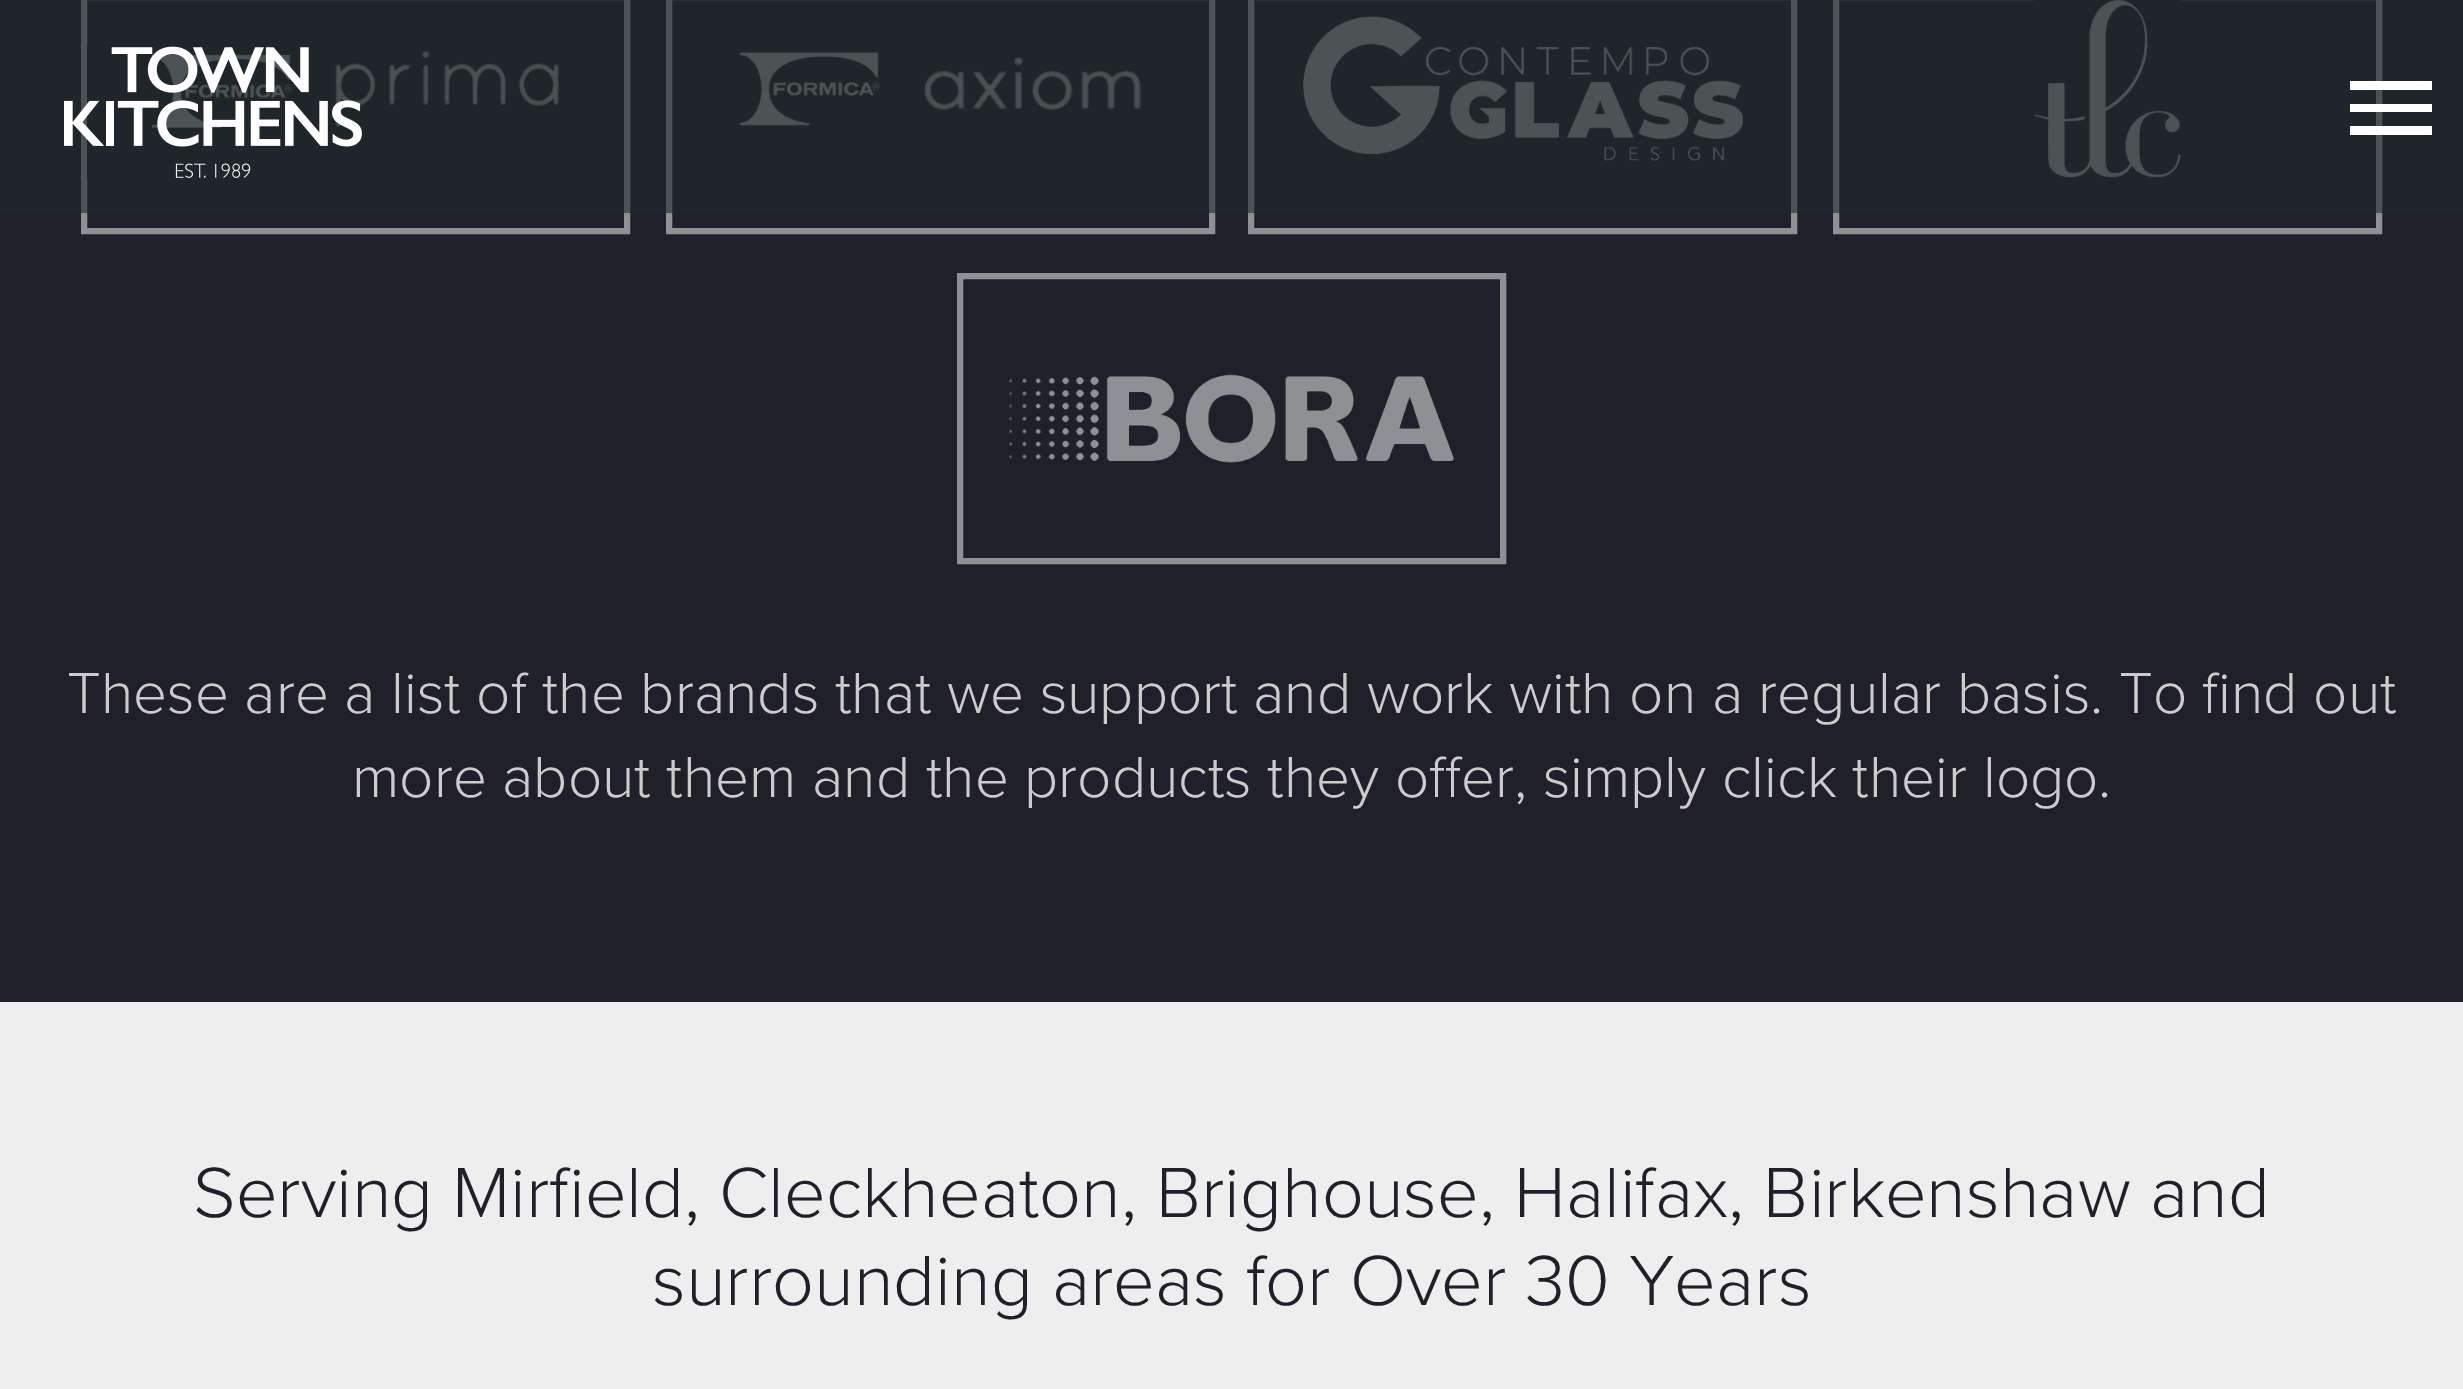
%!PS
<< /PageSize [2463 1389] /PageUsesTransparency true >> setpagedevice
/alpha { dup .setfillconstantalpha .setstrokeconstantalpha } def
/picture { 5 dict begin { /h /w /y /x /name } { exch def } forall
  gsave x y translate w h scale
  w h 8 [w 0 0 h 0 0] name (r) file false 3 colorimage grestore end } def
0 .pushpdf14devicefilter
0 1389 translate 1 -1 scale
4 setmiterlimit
0.122 0.125 0.161 setrgbcolor
0 0 2463 1389 rectfill
0.561 0.565 0.58 setrgbcolor
6 setlinewidth
84 -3 543 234 rectstroke
(img2.rgb) 152 50 407 78 picture
669 -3 543 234 rectstroke
(img3.rgb) 740 52 401 74 picture
1251 -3 543 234 rectstroke
(img4.rgb) 1303 16 440 145 picture
1836 -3 543 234 rectstroke
(img5.rgb) 2034 0 147 178 picture
0.6 alpha
0.122 0.165 0.161 setrgbcolor
0 0 2463 213 rectfill
1 alpha
(img1.rgb) 64 46 298 132 picture
1 setgray
newpath 2350 81 moveto 2432 81 lineto 2432 90 lineto 2350 90 lineto closepath 2350 112 moveto 2350 104 lineto 2432 104 lineto 2432 112 lineto closepath 2350 135 moveto 2350 126 lineto 2432 126 lineto 2432 135 lineto closepath fill
0.561 0.565 0.58 setrgbcolor
960 276 543 285 rectstroke
(img6.rgb) 1009 374 445 89 picture
/ProximaNova-Light [60 0 0 -60 0 0] selectfont
0.8 setgray
67 713 moveto (These are a list of the brands that we support and work with on a regular basis. To find out) show
352 797 moveto (more about them and the products they offer, simply click their logo.) show
0.933 setgray
0 1002 2463 387 rectfill
/ProximaNova-Light [73.5 0 0 -73.5 0 0] selectfont
0.122 0.125 0.161 setrgbcolor
193 1217 moveto (Serving Mirfield, Cleckheaton, Brighouse, Halifax, Birkenshaw and) show
652 1305 moveto (surrounding areas for Over 30 Years) show
.poppdf14devicefilter showpage
